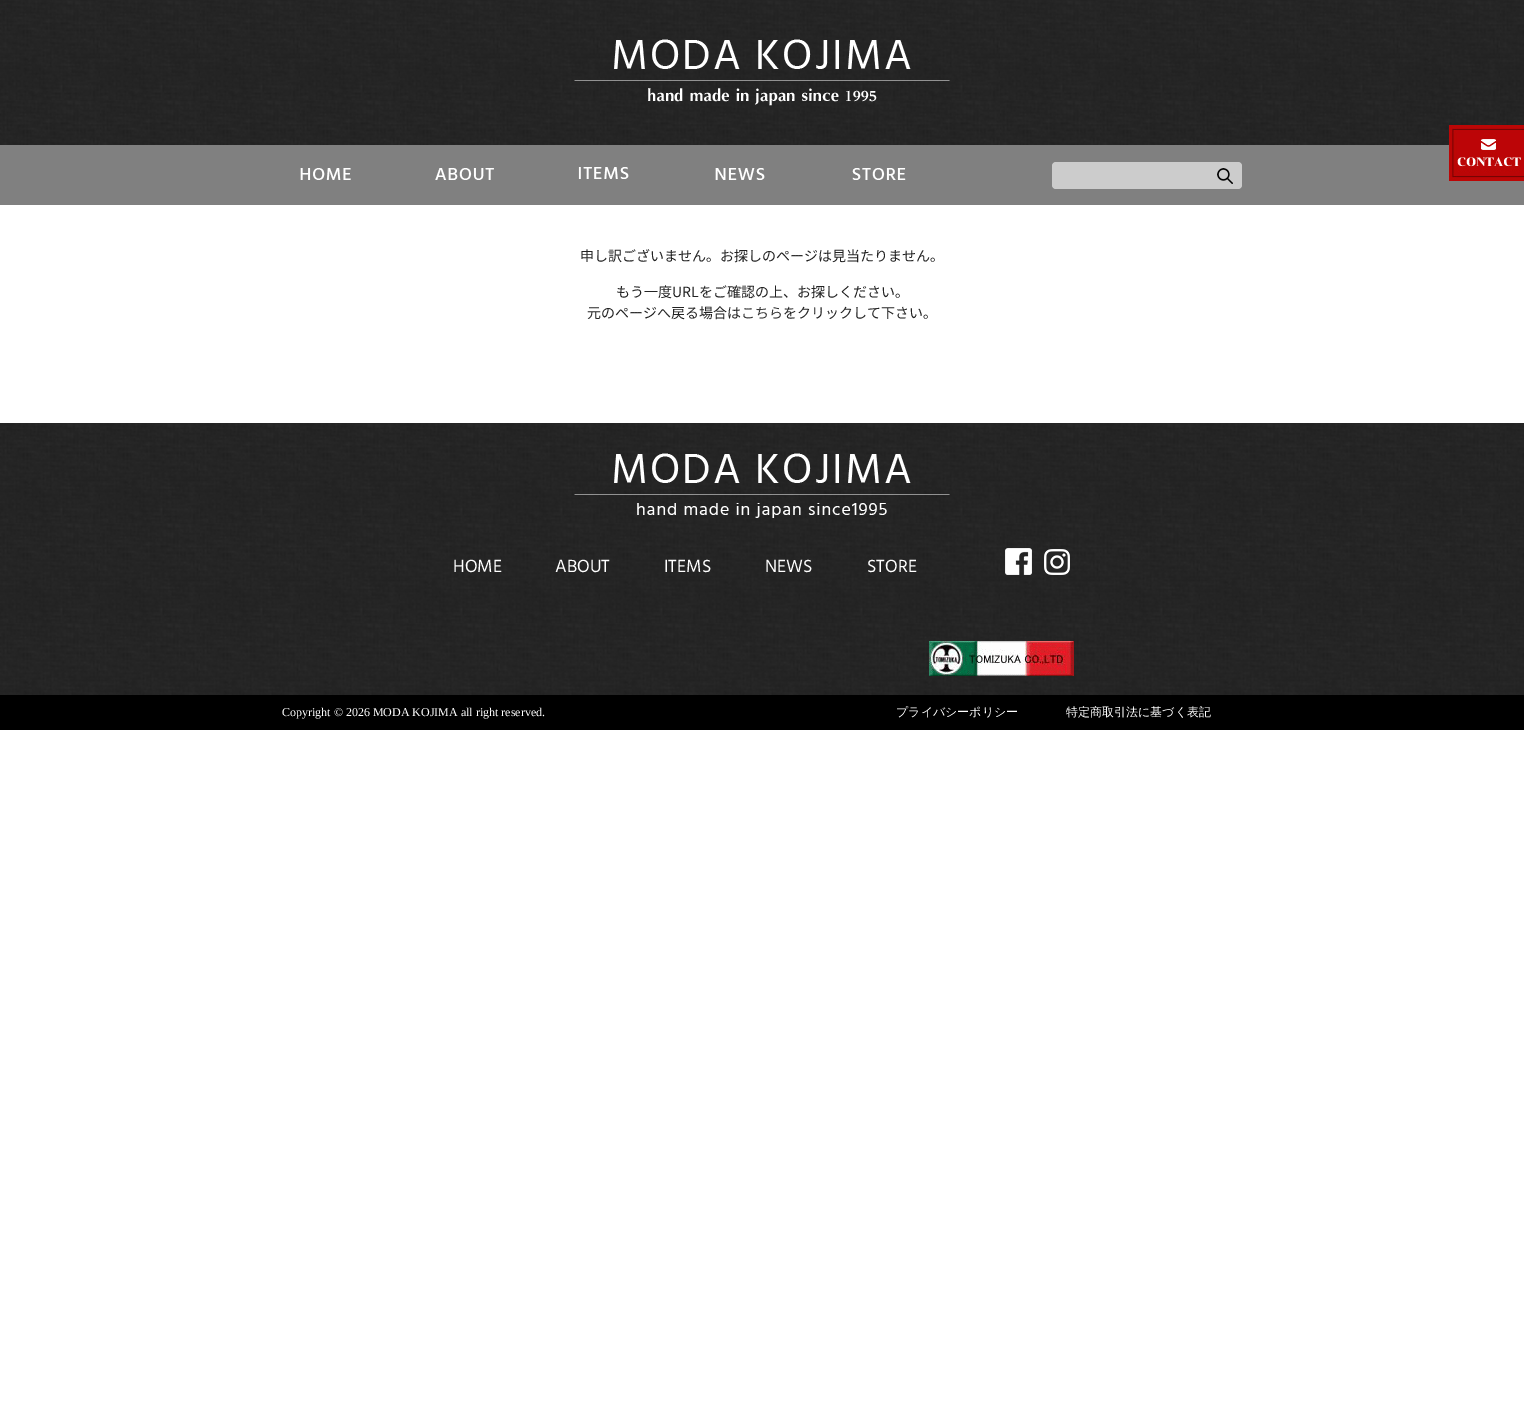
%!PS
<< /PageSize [1524 1409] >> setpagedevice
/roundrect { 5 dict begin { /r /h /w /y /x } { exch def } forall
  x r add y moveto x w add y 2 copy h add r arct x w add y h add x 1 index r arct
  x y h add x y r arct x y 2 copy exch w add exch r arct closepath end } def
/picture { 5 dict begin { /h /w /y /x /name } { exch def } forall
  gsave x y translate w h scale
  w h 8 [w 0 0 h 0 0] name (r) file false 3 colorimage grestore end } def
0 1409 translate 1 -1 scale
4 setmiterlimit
1 setgray
0 0 1524 1409 rectfill
(img1.rgb) 0 0 1524 145 picture
(img2.rgb) 574 39 376 67 picture
0.502 setgray
0 145 1524 60 rectfill
(img3.rgb) 1449 125 75 56 picture
(img4.rgb) 300 168 51 12 picture
(img5.rgb) 435 168 59 12 picture
(img6.rgb) 578 167 51 12 picture
(img7.rgb) 715 168 50 12 picture
(img8.rgb) 852 168 54 12 picture
0.8 setgray
1052 162 190 27 4 roundrect fill
(img9.rgb) 1217 168 16 16 picture
/NotoSansJP-Thin [14 0 0 -14 0 0] selectfont
0.137 setgray
580 261 moveto (申し訳ございません。お探しのページは見当たりません。) show
616 297 moveto (もう一度URLをご確認の上、お探しください。) show
587 318 moveto (元のページへ戻る場合は) show
0.208 setgray
741 318 moveto (こちら) show
0.137 setgray
783 318 moveto (をクリックして下さい。) show
(img10.rgb) 0 423 1524 272 picture
(img11.rgb) 574 453 376 65 picture
/Hind-Regular [18 0 0 -18 0 0] selectfont
1 setgray
453 572 moveto (HOME) show
555 572 moveto (ABOUT) show
664 572 moveto (ITEMS) show
765 572 moveto (NEWS) show
867 572 moveto (STORE) show
(img12.rgb) 1005 548 27 27 picture
(img13.rgb) 1044 549 26 26 picture
(img14.rgb) 929 641 145 35 picture
0 setgray
0 695 1524 35 rectfill
/LiberationSerif-Regular [12 0 0 -12 0 0] selectfont
1 setgray
282 716 moveto (Copyright © 2026 MODA KOJIMA all right reserved.) show
/WenQuanYiZenHei-Medium [12 0 0 -12 0 0] selectfont
896 716 moveto (プライバシーポリシー) show
1066 716 moveto (特定商取引法に基づく表記) show
showpage
